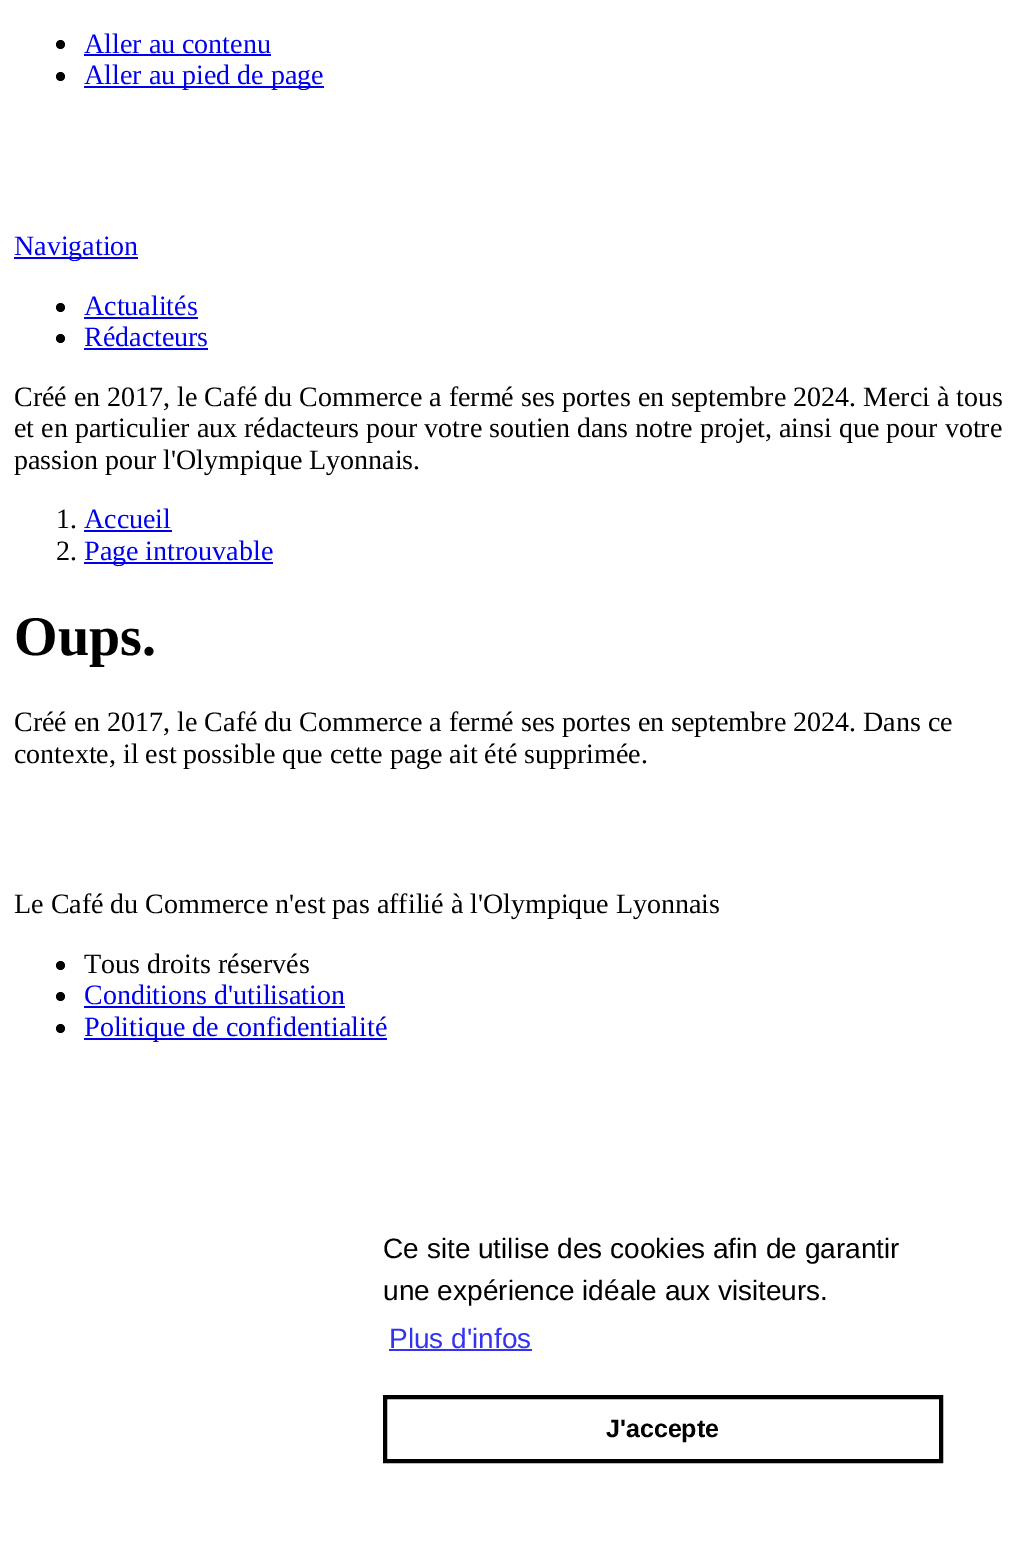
%!PS
<< /PageSize [1026 1546] >> setpagedevice
0 1546 translate 1 -1 scale
4 setmiterlimit
1 setgray
0 0 1026 1546 rectfill
0 setgray
newpath 60.5 44.5 4.5 0 360 arc closepath fill
/LiberationSerif-Regular [28 0 0 -28 0 0] selectfont
0 0 0.933 setrgbcolor
84 53 moveto (Aller au contenu) show
84 54 187 2 rectfill
0 setgray
newpath 60.5 76.5 4.5 0 360 arc closepath fill
0 0 0.933 setrgbcolor
84 86 240 2 rectfill
84 84 moveto (Aller au pied de page) show
14 257 124 2 rectfill
14 255 moveto (Navigation) show
0 setgray
newpath 60.5 307.5 4.5 0 360 arc closepath fill
0 0 0.933 setrgbcolor
84 315 moveto (Actualités) show
84 317 114 2 rectfill
0 setgray
newpath 60.5 338.5 4.5 0 360 arc closepath fill
0 0 0.933 setrgbcolor
84 346 moveto (Rédacteurs) show
84 348 124 2 rectfill
0 setgray
14 406 moveto (Créé en 2017, le Café du Commerce a fermé ses portes en septembre 2024. Merci à tous) show
14 437 moveto (et en particulier aux rédacteurs pour votre soutien dans notre projet, ainsi que pour votre) show
14 469 moveto (passion pour l'Olympique Lyonnais.) show
56 528 moveto (1.) show
0 0 0.933 setrgbcolor
84 528 moveto (Accueil) show
84 530 88 2 rectfill
0 setgray
56 560 moveto (2.) show
0 0 0.933 setrgbcolor
84 562 189 2 rectfill
84 560 moveto (Page introuvable) show
/LiberationSerif-Bold [56 0 0 -56 0 0] selectfont
0 setgray
14 655 moveto (Oups.) show
/LiberationSerif-Regular [28 0 0 -28 0 0] selectfont
14 731 moveto (Créé en 2017, le Café du Commerce a fermé ses portes en septembre 2024. Dans ce) show
14 763 moveto (contexte, il est possible que cette page ait été supprimée.) show
14 913 moveto (Le Café du Commerce n'est pas affilié à l'Olympique Lyonnais) show
newpath 60.5 965.5 4.5 0 360 arc closepath fill
84 973 moveto (Tous droits réservés) show
newpath 60.5 996.5 4.5 0 360 arc closepath fill
0 0 0.933 setrgbcolor
84 1004 moveto (Conditions d'utilisation) show
84 1006 261 2 rectfill
0 setgray
newpath 60.5 1028.5 4.5 0 360 arc closepath fill
0 0 0.933 setrgbcolor
84 1038 303 2 rectfill
84 1036 moveto (Politique de confidentialité) show
/LiberationSans-Regular [28 0 0 -28 0 0] selectfont
0 setgray
383 1258 moveto (Ce site utilise des cookies afin de garantir) show
383 1300 moveto (une expérience idéale aux visiteurs.) show
0.2 0.2 0.945 setrgbcolor
389 1348 moveto (Plus d'infos) show
389 1349 143 2 rectfill
0 setgray
4 setlinewidth
385 1397 556 64 rectstroke
/LiberationSans-Bold [25 0 0 -25 0 0] selectfont
606 1437 moveto (J'accepte) show
showpage
